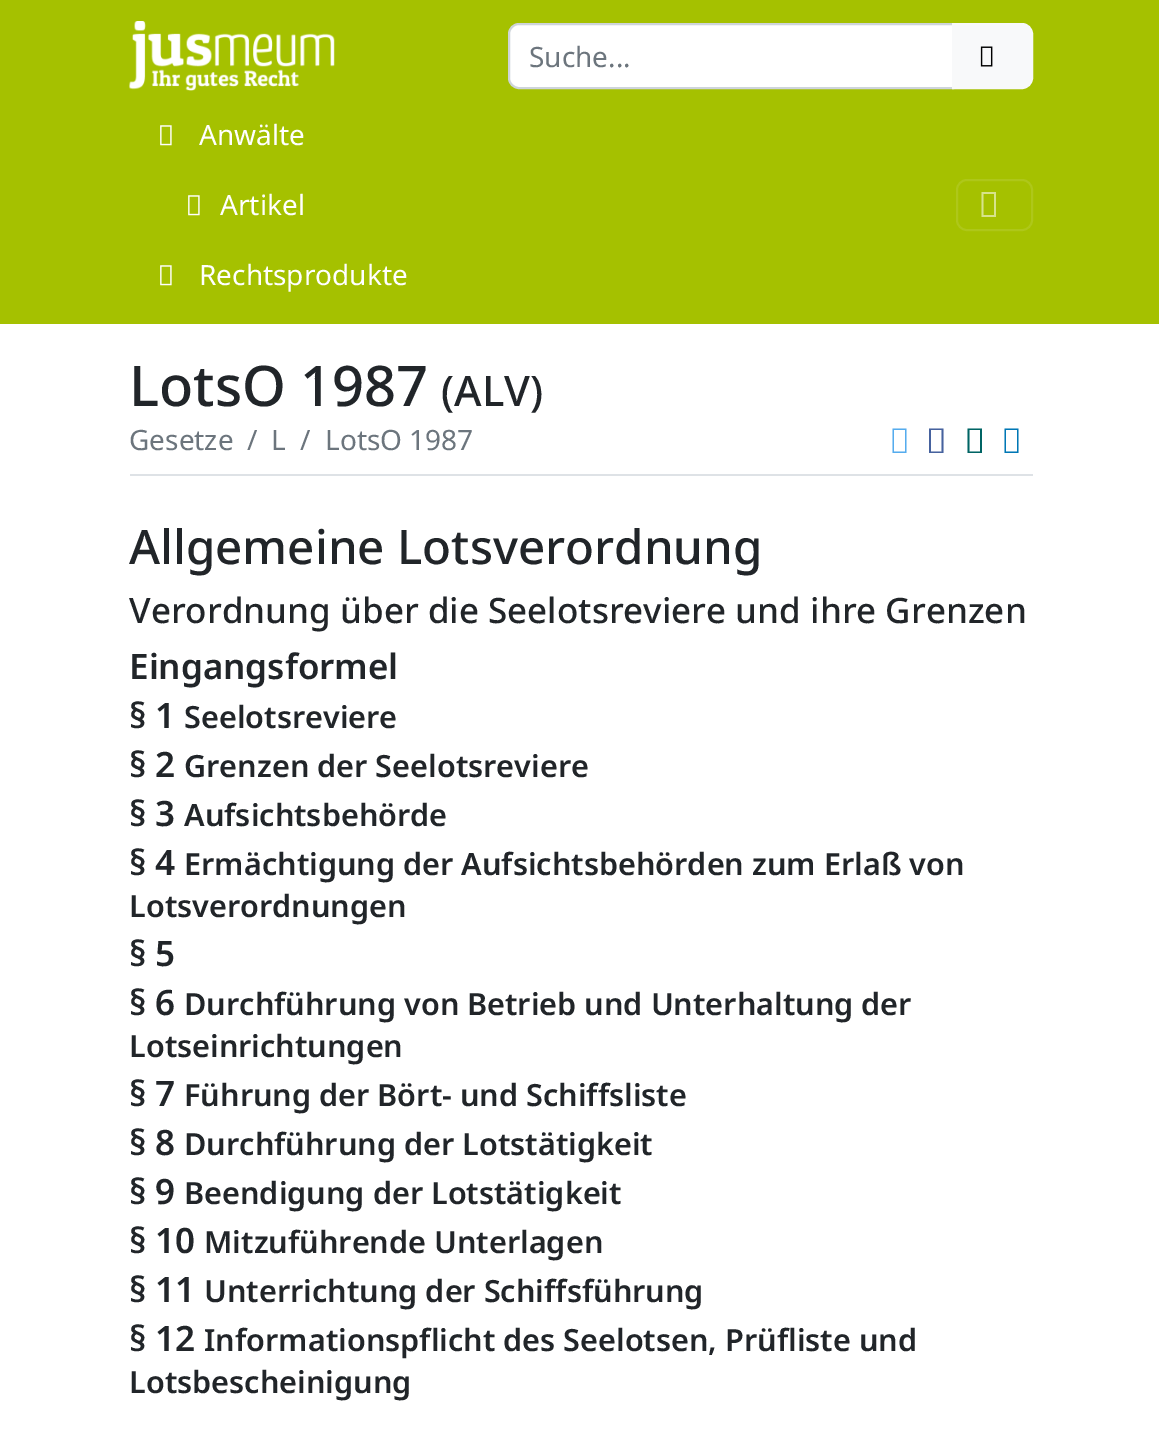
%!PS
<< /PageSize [1159 1431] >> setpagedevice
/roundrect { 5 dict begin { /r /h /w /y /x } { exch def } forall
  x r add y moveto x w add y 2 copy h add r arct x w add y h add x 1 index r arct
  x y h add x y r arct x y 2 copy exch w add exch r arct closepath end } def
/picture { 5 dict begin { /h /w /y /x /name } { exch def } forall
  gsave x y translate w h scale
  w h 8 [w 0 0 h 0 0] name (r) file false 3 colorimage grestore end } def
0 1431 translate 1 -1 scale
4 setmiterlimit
1 setgray
0 0 1159 1431 rectfill
0.647 0.757 0 setrgbcolor
0 0 1159 324 rectfill
(img1.rgb) 129 21 206 70 picture
1 setgray
newpath 519 24 moveto 953 24 lineto 953 88 lineto 519 88 lineto 513.5 88 509 83.5 509 78 curveto 509 34 lineto 509 28.5 513.5 24 519 24 curveto closepath gsave fill grestore
0.808 0.831 0.855 setrgbcolor
2 setlinewidth
stroke
/NotoSans-Regular [28 0 0 -28 0 0] selectfont
0.424 0.459 0.49 setrgbcolor
529 67 moveto (Suche...) show
0.973 0.976 0.98 setrgbcolor
newpath 953 24 moveto 1022 24 lineto 1027.5 24 1032 28.5 1032 34 curveto 1032 78 lineto 1032 83.5 1027.5 88 1022 88 curveto 953 88 lineto closepath gsave fill grestore
stroke
(img2.rgb) 980 46 13 21 picture
(img3.rgb) 160 125 12 21 picture
1 setgray
199 145 moveto (Anwälte) show
(img3.rgb) 188 195 12 21 picture
220 215 moveto (Artikel) show
(img3.rgb) 160 265 12 21 picture
199 285 moveto (Rechtsprodukte) show
0.682 0.78 0.102 setrgbcolor
957 180 75 50 10 roundrect stroke
0.843 0.89 0.549 setrgbcolor
newpath 981.5 217 moveto 981.5 192 lineto 996 192 lineto 996 217 lineto closepath 983.5 215 moveto 994 215 lineto 994 194 lineto 983.5 194 lineto closepath fill
/NotoSans-Medium [56 0 0 -56 0 0] selectfont
0.129 0.145 0.161 setrgbcolor
129 406 moveto (LotsO 1987) show
/NotoSans-Medium [42 0 0 -42 0 0] selectfont
441 406 moveto (\(ALV\)) show
0.871 0.886 0.902 setrgbcolor
130 474 903 2 rectfill
/NotoSans-Regular [28 0 0 -28 0 0] selectfont
0.424 0.459 0.49 setrgbcolor
129 450 moveto (Gesetze) show
247 450 moveto (/) show
271 450 moveto (L) show
300 450 moveto (/) show
325 450 moveto (LotsO 1987) show
0.333 0.675 0.933 setrgbcolor
newpath 892.5 453 moveto 892.5 428.5 lineto 906.5 428.5 lineto 906.5 453 lineto closepath 894 451.5 moveto 905 451.5 lineto 905 430 lineto 894 430 lineto closepath fill
0.275 0.384 0.62 setrgbcolor
newpath 929 453 moveto 929 428.5 lineto 943.5 428.5 lineto 943.5 453 lineto closepath 931 451.5 moveto 941.5 451.5 lineto 941.5 430 lineto 931 430 lineto closepath fill
0 0.392 0.392 setrgbcolor
newpath 967.5 453 moveto 967.5 428.5 lineto 982 428.5 lineto 982 453 lineto closepath 969.5 451.5 moveto 980 451.5 lineto 980 430 lineto 969.5 430 lineto closepath fill
0 0.467 0.71 setrgbcolor
newpath 1004.5 453 moveto 1004.5 428.5 lineto 1018.5 428.5 lineto 1018.5 453 lineto closepath 1006 451.5 moveto 1017 451.5 lineto 1017 430 lineto 1006 430 lineto closepath fill
/NotoSans-Medium [47.5 0 0 -47.5 0 0] selectfont
0.129 0.145 0.161 setrgbcolor
129 564 moveto (Allgemeine Lotsverordnung) show
/NotoSans-Medium [35 0 0 -35 0 0] selectfont
129 623 moveto (Verordnung über die Seelotsreviere und ihre Grenzen) show
/NotoSans-SemiBold [35 0 0 -35 0 0] selectfont
129 679 moveto (Eingangsformel) show
129 728 moveto (§ 1) show
/NotoSans-SemiBold [30.6 0 0 -30.6 0 0] selectfont
184 728 moveto (Seelotsreviere) show
/NotoSans-SemiBold [35 0 0 -35 0 0] selectfont
129 777 moveto (§ 2) show
/NotoSans-SemiBold [30.6 0 0 -30.6 0 0] selectfont
184 777 moveto (Grenzen der Seelotsreviere) show
/NotoSans-SemiBold [35 0 0 -35 0 0] selectfont
129 826 moveto (§ 3) show
/NotoSans-SemiBold [30.6 0 0 -30.6 0 0] selectfont
184 826 moveto (Aufsichtsbehörde) show
/NotoSans-SemiBold [35 0 0 -35 0 0] selectfont
129 875 moveto (§ 4) show
/NotoSans-SemiBold [30.6 0 0 -30.6 0 0] selectfont
184 875 moveto (Ermächtigung der Aufsichtsbehörden zum Erlaß von) show
129 917 moveto (Lotsverordnungen) show
/NotoSans-SemiBold [35 0 0 -35 0 0] selectfont
129 966 moveto (§ 5) show
129 1015 moveto (§ 6) show
/NotoSans-SemiBold [30.6 0 0 -30.6 0 0] selectfont
184 1015 moveto (Durchführung von Betrieb und Unterhaltung der) show
129 1057 moveto (Lotseinrichtungen) show
/NotoSans-SemiBold [35 0 0 -35 0 0] selectfont
129 1106 moveto (§ 7) show
/NotoSans-SemiBold [30.6 0 0 -30.6 0 0] selectfont
184 1106 moveto (Führung der Bört- und Schiffsliste) show
/NotoSans-SemiBold [35 0 0 -35 0 0] selectfont
129 1155 moveto (§ 8) show
/NotoSans-SemiBold [30.6 0 0 -30.6 0 0] selectfont
184 1155 moveto (Durchführung der Lotstätigkeit) show
/NotoSans-SemiBold [35 0 0 -35 0 0] selectfont
129 1204 moveto (§ 9) show
/NotoSans-SemiBold [30.6 0 0 -30.6 0 0] selectfont
184 1204 moveto (Beendigung der Lotstätigkeit) show
/NotoSans-SemiBold [35 0 0 -35 0 0] selectfont
129 1253 moveto (§ 10) show
/NotoSans-SemiBold [30.6 0 0 -30.6 0 0] selectfont
204 1253 moveto (Mitzuführende Unterlagen) show
/NotoSans-SemiBold [35 0 0 -35 0 0] selectfont
129 1302 moveto (§ 11) show
/NotoSans-SemiBold [30.6 0 0 -30.6 0 0] selectfont
204 1302 moveto (Unterrichtung der Schiffsführung) show
/NotoSans-SemiBold [35 0 0 -35 0 0] selectfont
129 1351 moveto (§ 12) show
/NotoSans-SemiBold [30.6 0 0 -30.6 0 0] selectfont
204 1351 moveto (Informationspflicht des Seelotsen, Prüfliste und) show
129 1393 moveto (Lotsbescheinigung) show
showpage
